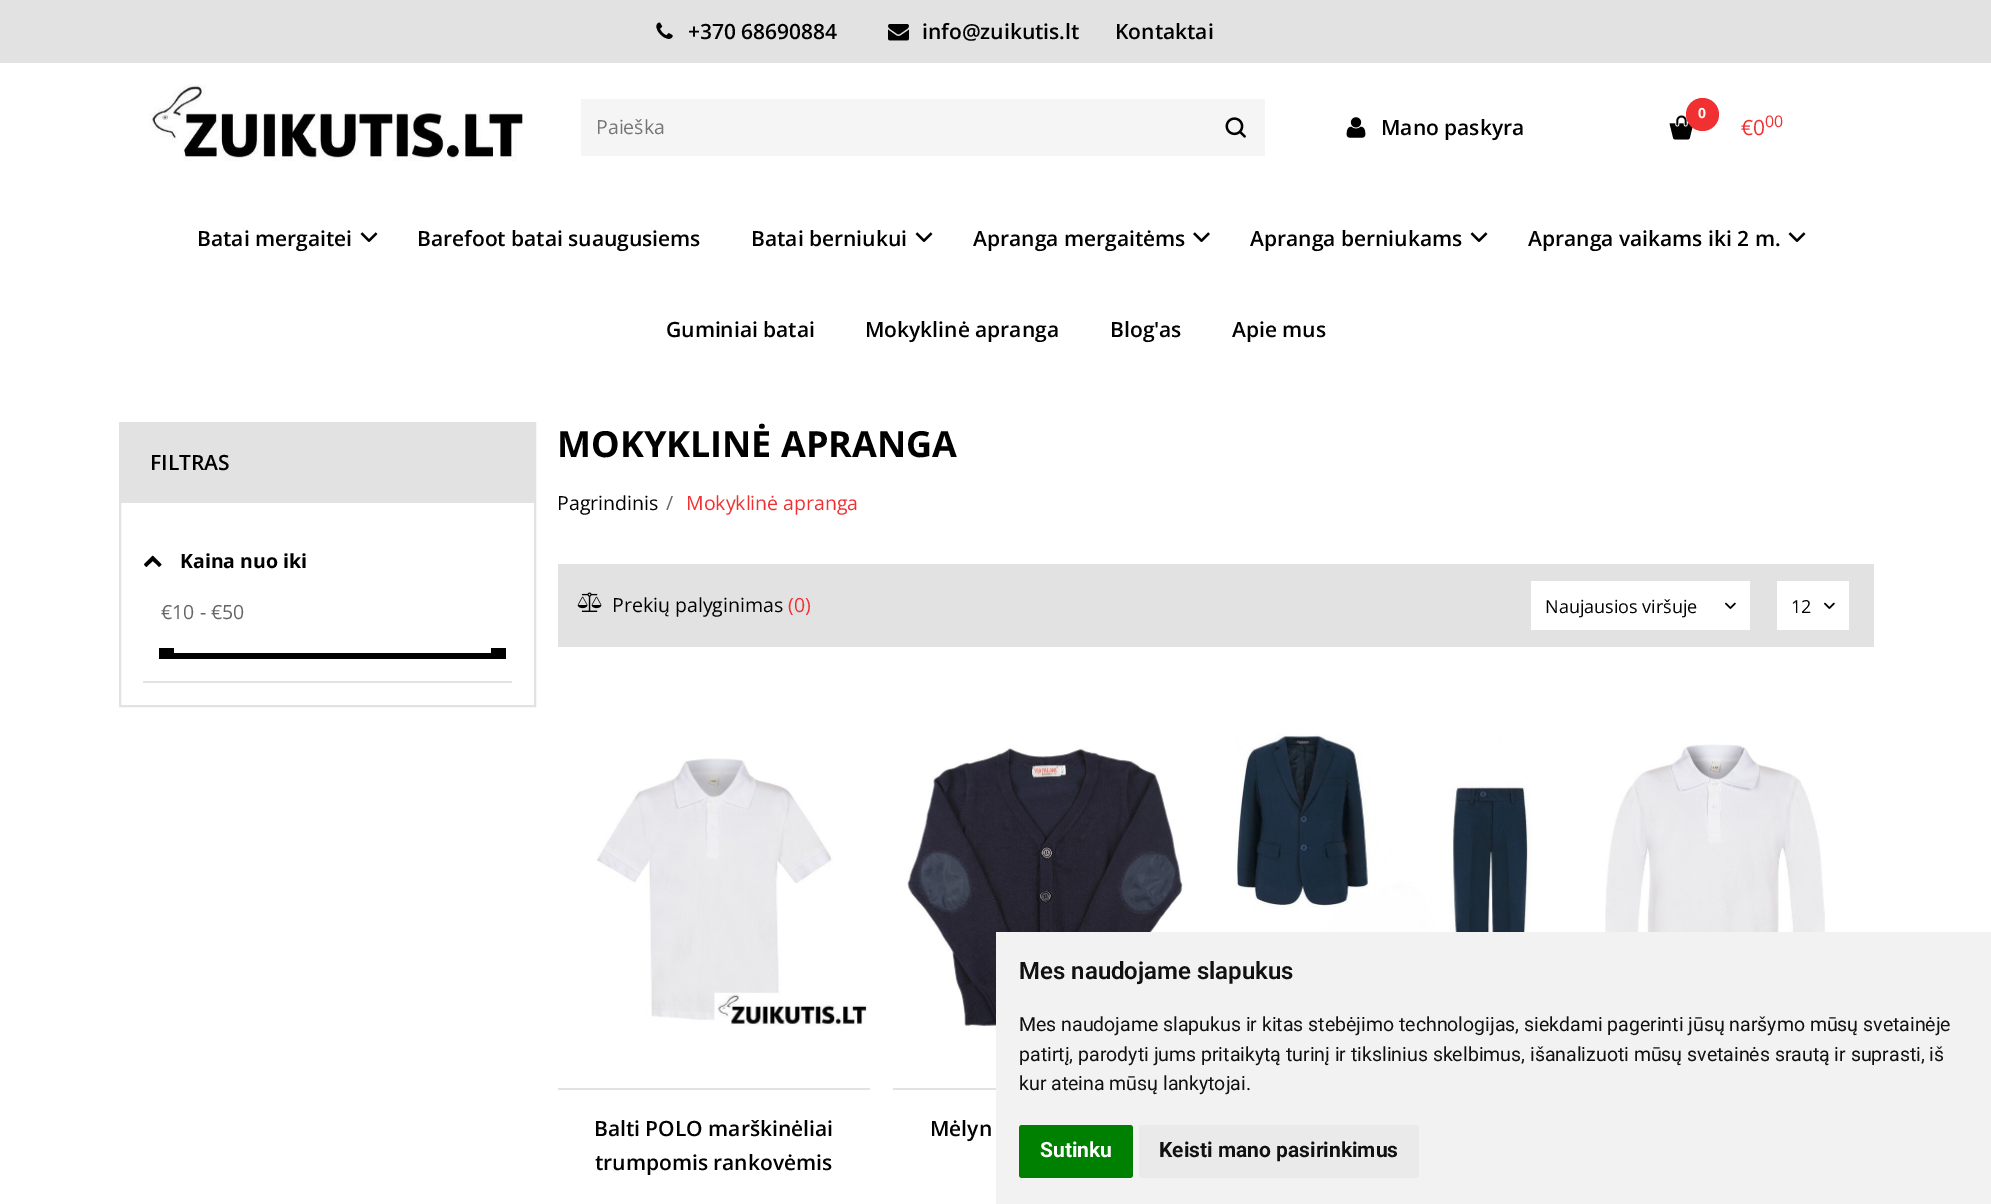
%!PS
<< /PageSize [1991 1204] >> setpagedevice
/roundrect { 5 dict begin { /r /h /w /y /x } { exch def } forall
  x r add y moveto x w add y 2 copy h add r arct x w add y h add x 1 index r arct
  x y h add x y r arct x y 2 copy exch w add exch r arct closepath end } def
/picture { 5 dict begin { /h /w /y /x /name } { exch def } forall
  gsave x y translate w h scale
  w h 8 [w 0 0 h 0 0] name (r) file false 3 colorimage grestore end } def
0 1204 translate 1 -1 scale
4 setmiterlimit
1 setgray
0 0 1991 1204 rectfill
0.886 setgray
0 0 1991 63 rectfill
(img1.rgb) 656 22 17 17 picture
/OpenSans-SemiBold [21 0 0 -21 0 0] selectfont
0 setgray
688 39 moveto (+370 68690884) show
(img2.rgb) 888 24 21 17 picture
922 39 moveto (info@zuikutis.lt) show
1115 39 moveto (Kontaktai) show
(img3.rgb) 149 84 374 77 picture
0.961 setgray
581 99 684 57 rectfill
/OpenSans-Regular [19.5 0 0 -19.5 0 0] selectfont
0.459 setgray
596 134 moveto (Paieška) show
(img4.rgb) 1225 117 21 21 picture
(img5.rgb) 1346 117 20 21 picture
/OpenSans-SemiBold [21 0 0 -21 0 0] selectfont
0 setgray
1381 135 moveto (Mano paskyra) show
(img6.rgb) 1669 115 24 25 picture
0.945 0.188 0.196 setrgbcolor
newpath 1702.5 114.5 16.5 0 360 arc closepath fill
/OpenSans-Bold [14 0 0 -14 0 0] selectfont
1 setgray
1698 118 moveto (0) show
/OpenSans-Regular [21 0 0 -21 0 0] selectfont
0.945 0.188 0.196 setrgbcolor
1741 135 moveto (€0) show
/OpenSans-Regular [16 0 0 -16 0 0] selectfont
1765 127 moveto (00) show
/OpenSans-SemiBold [21 0 0 -21 0 0] selectfont
0 setgray
197 246 moveto (Batai mergaitei) show
(img7.rgb) 360 232 18 10 picture
417 246 moveto (Barefoot batai suaugusiems) show
751 246 moveto (Batai berniukui) show
(img7.rgb) 915 232 18 10 picture
973 246 moveto (Apranga mergaitėms) show
(img8.rgb) 1193 232 17 10 picture
1250 246 moveto (Apranga berniukams) show
(img7.rgb) 1470 232 18 10 picture
1528 246 moveto (Apranga vaikams iki 2 m.) show
(img7.rgb) 1788 232 18 10 picture
666 337 moveto (Guminiai batai) show
865 337 moveto (Mokyklinė apranga) show
1110 337 moveto (Blog'as) show
1232 337 moveto (Apie mus) show
0.886 setgray
2 setlinewidth
120 423 415 283 rectstroke
121 424 413 79 rectfill
0 setgray
150 470 moveto (FILTRAS) show
0.886 setgray
143 681 369 2 rectfill
/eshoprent-Regular [19.5 0 0 -19.5 0 0] selectfont
0 setgray
143 570 moveto (1) show
/OpenSans-Bold [19.5 0 0 -19.5 0 0] selectfont
180 568 moveto (Kaina nuo iki) show
/OpenSans-Regular [19.5 0 0 -19.5 0 0] selectfont
0.4 setgray
161 619 moveto (€10 - €50) show
0 setgray
159 648 15 11 rectfill
174 653 318 6 rectfill
491 648 15 11 rectfill
/OpenSans-Bold [36 0 0 -36 0 0] selectfont
557 457 moveto (MOKYKLINĖ APRANGA) show
/OpenSans-Regular [19.5 0 0 -19.5 0 0] selectfont
557 510 moveto (Pagrindinis) show
0.4 setgray
666 510 moveto (/) show
0.945 0.188 0.196 setrgbcolor
686 510 moveto (Mokyklinė apranga) show
0.886 setgray
558 564 1316 83 rectfill
(img9.rgb) 577 592 25 20 picture
0 setgray
612 612 moveto (Prekių palyginimas) show
0.945 0.188 0.196 setrgbcolor
788 612 moveto (\(0\)) show
1 setgray
1531 581 219 49 rectfill
(img10.rgb) 1725 602 11 7 picture
/OpenSans-Regular [18 0 0 -18 0 0] selectfont
0 setgray
1545 613 moveto (Naujausios viršuje) show
1 setgray
1777 581 72 49 rectfill
(img10.rgb) 1824 602 11 7 picture
0 setgray
1791 613 moveto (12) show
(img11.rgb) 1235 733 302 199 picture
(img12.rgb) 1605 744 266 188 picture
0.886 setgray
558 1088 312 2 rectfill
(img13.rgb) 596 758 272 268 picture
/OpenSans-SemiBold [21 0 0 -21 0 0] selectfont
0 setgray
594 1136 moveto (Balti POLO marškinėliai) show
595 1170 moveto (trumpomis rankovėmis) show
0.886 setgray
893 1088 103 2 rectfill
(img14.rgb) 907 747 295 280 picture
0 setgray
930 1136 moveto (Mėlyn) show
0.949 setgray
996 932 995 272 rectfill
/Roboto-SemiBold [24 0 0 -24 0 0] selectfont
0.067 setgray
1019 979 moveto (Mes naudojame slapukus) show
/Roboto-Regular [19.5 0 0 -19.5 0 0] selectfont
1019 1031 moveto (Mes naudojame slapukus ir kitas stebėjimo technologijas, siekdami pagerinti jūsų naršymo mūsų svetainėje) show
1019 1061 moveto (patirtį, parodyti jums pritaikytą turinį ir tikslinius skelbimus, išanalizuoti mūsų svetainės srautą ir suprasti, iš) show
1019 1090 moveto (kur ateina mūsų lankytojai.) show
0 0.502 0 setrgbcolor
1019 1125 114 53 3 roundrect fill
/Roboto-Bold [21 0 0 -21 0 0] selectfont
1 setgray
1040 1157 moveto (Sutinku) show
0.918 setgray
1139 1125 280 53 3 roundrect fill
0.067 setgray
1159 1157 moveto (Keisti mano pasirinkimus) show
showpage
